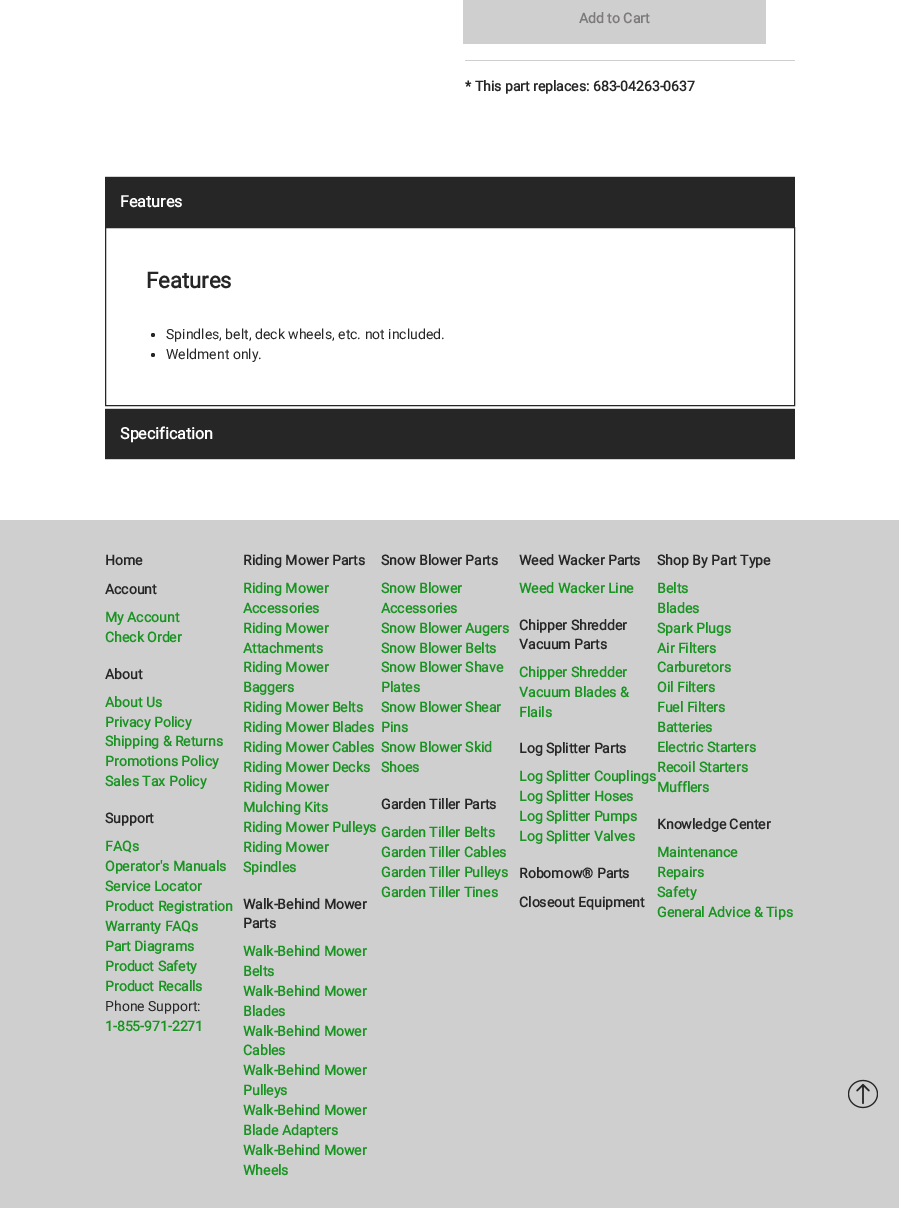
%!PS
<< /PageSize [899 1208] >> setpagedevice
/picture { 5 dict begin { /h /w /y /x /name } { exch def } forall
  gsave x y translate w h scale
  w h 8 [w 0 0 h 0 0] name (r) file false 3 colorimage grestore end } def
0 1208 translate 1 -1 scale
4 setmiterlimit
1 setgray
0 0 899 1208 rectfill
0.816 0.812 0.812 setrgbcolor
463 0 303 44 rectfill
/Roboto-Bold [14 0 0 -14 0 0] selectfont
0.486 0.478 0.478 setrgbcolor
579 23 moveto (Add to Cart) show
0.816 0.812 0.812 setrgbcolor
465 60 330 1 rectfill
0.149 setgray
465 91 moveto (* This part replaces: 683-04263-0637) show
0.82 0.827 0.831 setrgbcolor
105 176 690 1 rectfill
0.149 setgray
105 177 690 50 rectfill
/Roboto-Bold [16 0 0 -16 0 0] selectfont
1 setgray
120 207 moveto (Features) show
0.149 setgray
105.5 227.5 689 178 rectstroke
/Roboto-Bold [22 0 0 -22 0 0] selectfont
146 288 moveto (Features) show
newpath 153 335 2 0 360 arc closepath fill
/Roboto-Regular [14 0 0 -14 0 0] selectfont
166 339 moveto (Spindles, belt, deck wheels, etc. not included.) show
newpath 153 355 2 0 360 arc closepath fill
166 359 moveto (Weldment only.) show
0.82 0.827 0.831 setrgbcolor
105 408 690 1 rectfill
105 459 690 1 rectfill
0.149 setgray
105 409 690 50 rectfill
/Roboto-Bold [16 0 0 -16 0 0] selectfont
1 setgray
120 439 moveto (Specification) show
0.816 0.812 0.812 setrgbcolor
0 520 899 688 rectfill
/Roboto-Bold [14 0 0 -14 0 0] selectfont
0.149 setgray
105 565 moveto (Home) show
105 594 moveto (Account) show
0.098 0.58 0.133 setrgbcolor
105 622 moveto (My Account) show
105 642 moveto (Check Order) show
0.149 setgray
105 679 moveto (About) show
0.098 0.58 0.133 setrgbcolor
105 707 moveto (About Us) show
105 727 moveto (Privacy Policy) show
105 746 moveto (Shipping & Returns) show
105 766 moveto (Promotions Policy) show
105 786 moveto (Sales Tax Policy) show
0.149 setgray
105 823 moveto (Support) show
0.098 0.58 0.133 setrgbcolor
105 851 moveto (FAQs) show
105 871 moveto (Operator's Manuals) show
105 891 moveto (Service Locator) show
105 911 moveto (Product Registration) show
105 931 moveto (Warranty FAQs) show
105 951 moveto (Part Diagrams) show
105 971 moveto (Product Safety) show
105 991 moveto (Product Recalls) show
/Roboto-Regular [14 0 0 -14 0 0] selectfont
0.149 setgray
105 1011 moveto (Phone Support:) show
/Roboto-Bold [14 0 0 -14 0 0] selectfont
0.098 0.58 0.133 setrgbcolor
105 1031 moveto (1-855-971-2271) show
0.149 setgray
243 565 moveto (Riding Mower Parts) show
0.098 0.58 0.133 setrgbcolor
243 593 moveto (Riding Mower) show
243 613 moveto (Accessories) show
243 633 moveto (Riding Mower) show
243 653 moveto (Attachments) show
243 672 moveto (Riding Mower) show
243 692 moveto (Baggers) show
243 712 moveto (Riding Mower Belts) show
243 732 moveto (Riding Mower Blades) show
243 752 moveto (Riding Mower Cables) show
243 772 moveto (Riding Mower Decks) show
243 792 moveto (Riding Mower) show
243 812 moveto (Mulching Kits) show
243 832 moveto (Riding Mower Pulleys) show
243 852 moveto (Riding Mower) show
243 872 moveto (Spindles) show
0.149 setgray
243 909 moveto (Walk-Behind Mower) show
243 928 moveto (Parts) show
0.098 0.58 0.133 setrgbcolor
243 956 moveto (Walk-Behind Mower) show
243 976 moveto (Belts) show
243 996 moveto (Walk-Behind Mower) show
243 1016 moveto (Blades) show
243 1036 moveto (Walk-Behind Mower) show
243 1055 moveto (Cables) show
243 1075 moveto (Walk-Behind Mower) show
243 1095 moveto (Pulleys) show
243 1115 moveto (Walk-Behind Mower) show
243 1135 moveto (Blade Adapters) show
243 1155 moveto (Walk-Behind Mower) show
243 1175 moveto (Wheels) show
0.149 setgray
381 565 moveto (Snow Blower Parts) show
0.098 0.58 0.133 setrgbcolor
381 593 moveto (Snow Blower) show
381 613 moveto (Accessories) show
381 633 moveto (Snow Blower Augers) show
381 653 moveto (Snow Blower Belts) show
381 672 moveto (Snow Blower Shave) show
381 692 moveto (Plates) show
381 712 moveto (Snow Blower Shear) show
381 732 moveto (Pins) show
381 752 moveto (Snow Blower Skid) show
381 772 moveto (Shoes) show
0.149 setgray
381 809 moveto (Garden Tiller Parts) show
0.098 0.58 0.133 setrgbcolor
381 837 moveto (Garden Tiller Belts) show
381 857 moveto (Garden Tiller Cables) show
381 877 moveto (Garden Tiller Pulleys) show
381 897 moveto (Garden Tiller Tines) show
0.149 setgray
519 565 moveto (Weed Wacker Parts) show
0.098 0.58 0.133 setrgbcolor
519 593 moveto (Weed Wacker Line) show
0.149 setgray
519 630 moveto (Chipper Shredder) show
519 649 moveto (Vacuum Parts) show
0.098 0.58 0.133 setrgbcolor
519 677 moveto (Chipper Shredder) show
519 697 moveto (Vacuum Blades &) show
519 717 moveto (Flails) show
0.149 setgray
519 753 moveto (Log Splitter Parts) show
0.098 0.58 0.133 setrgbcolor
519 781 moveto (Log Splitter Couplings) show
519 801 moveto (Log Splitter Hoses) show
519 821 moveto (Log Splitter Pumps) show
519 841 moveto (Log Splitter Valves) show
0.149 setgray
519 878 moveto (Robomow® Parts) show
519 907 moveto (Closeout Equipment) show
657 565 moveto (Shop By Part Type) show
0.098 0.58 0.133 setrgbcolor
657 593 moveto (Belts) show
657 613 moveto (Blades) show
657 633 moveto (Spark Plugs) show
657 653 moveto (Air Filters) show
657 672 moveto (Carburetors) show
657 692 moveto (Oil Filters) show
657 712 moveto (Fuel Filters) show
657 732 moveto (Batteries) show
657 752 moveto (Electric Starters) show
657 772 moveto (Recoil Starters) show
657 792 moveto (Mufflers) show
0.149 setgray
657 829 moveto (Knowledge Center) show
0.098 0.58 0.133 setrgbcolor
657 857 moveto (Maintenance) show
657 877 moveto (Repairs) show
657 897 moveto (Safety) show
657 917 moveto (General Advice & Tips) show
(img1.rgb) 848 1079 30 30 picture
showpage
